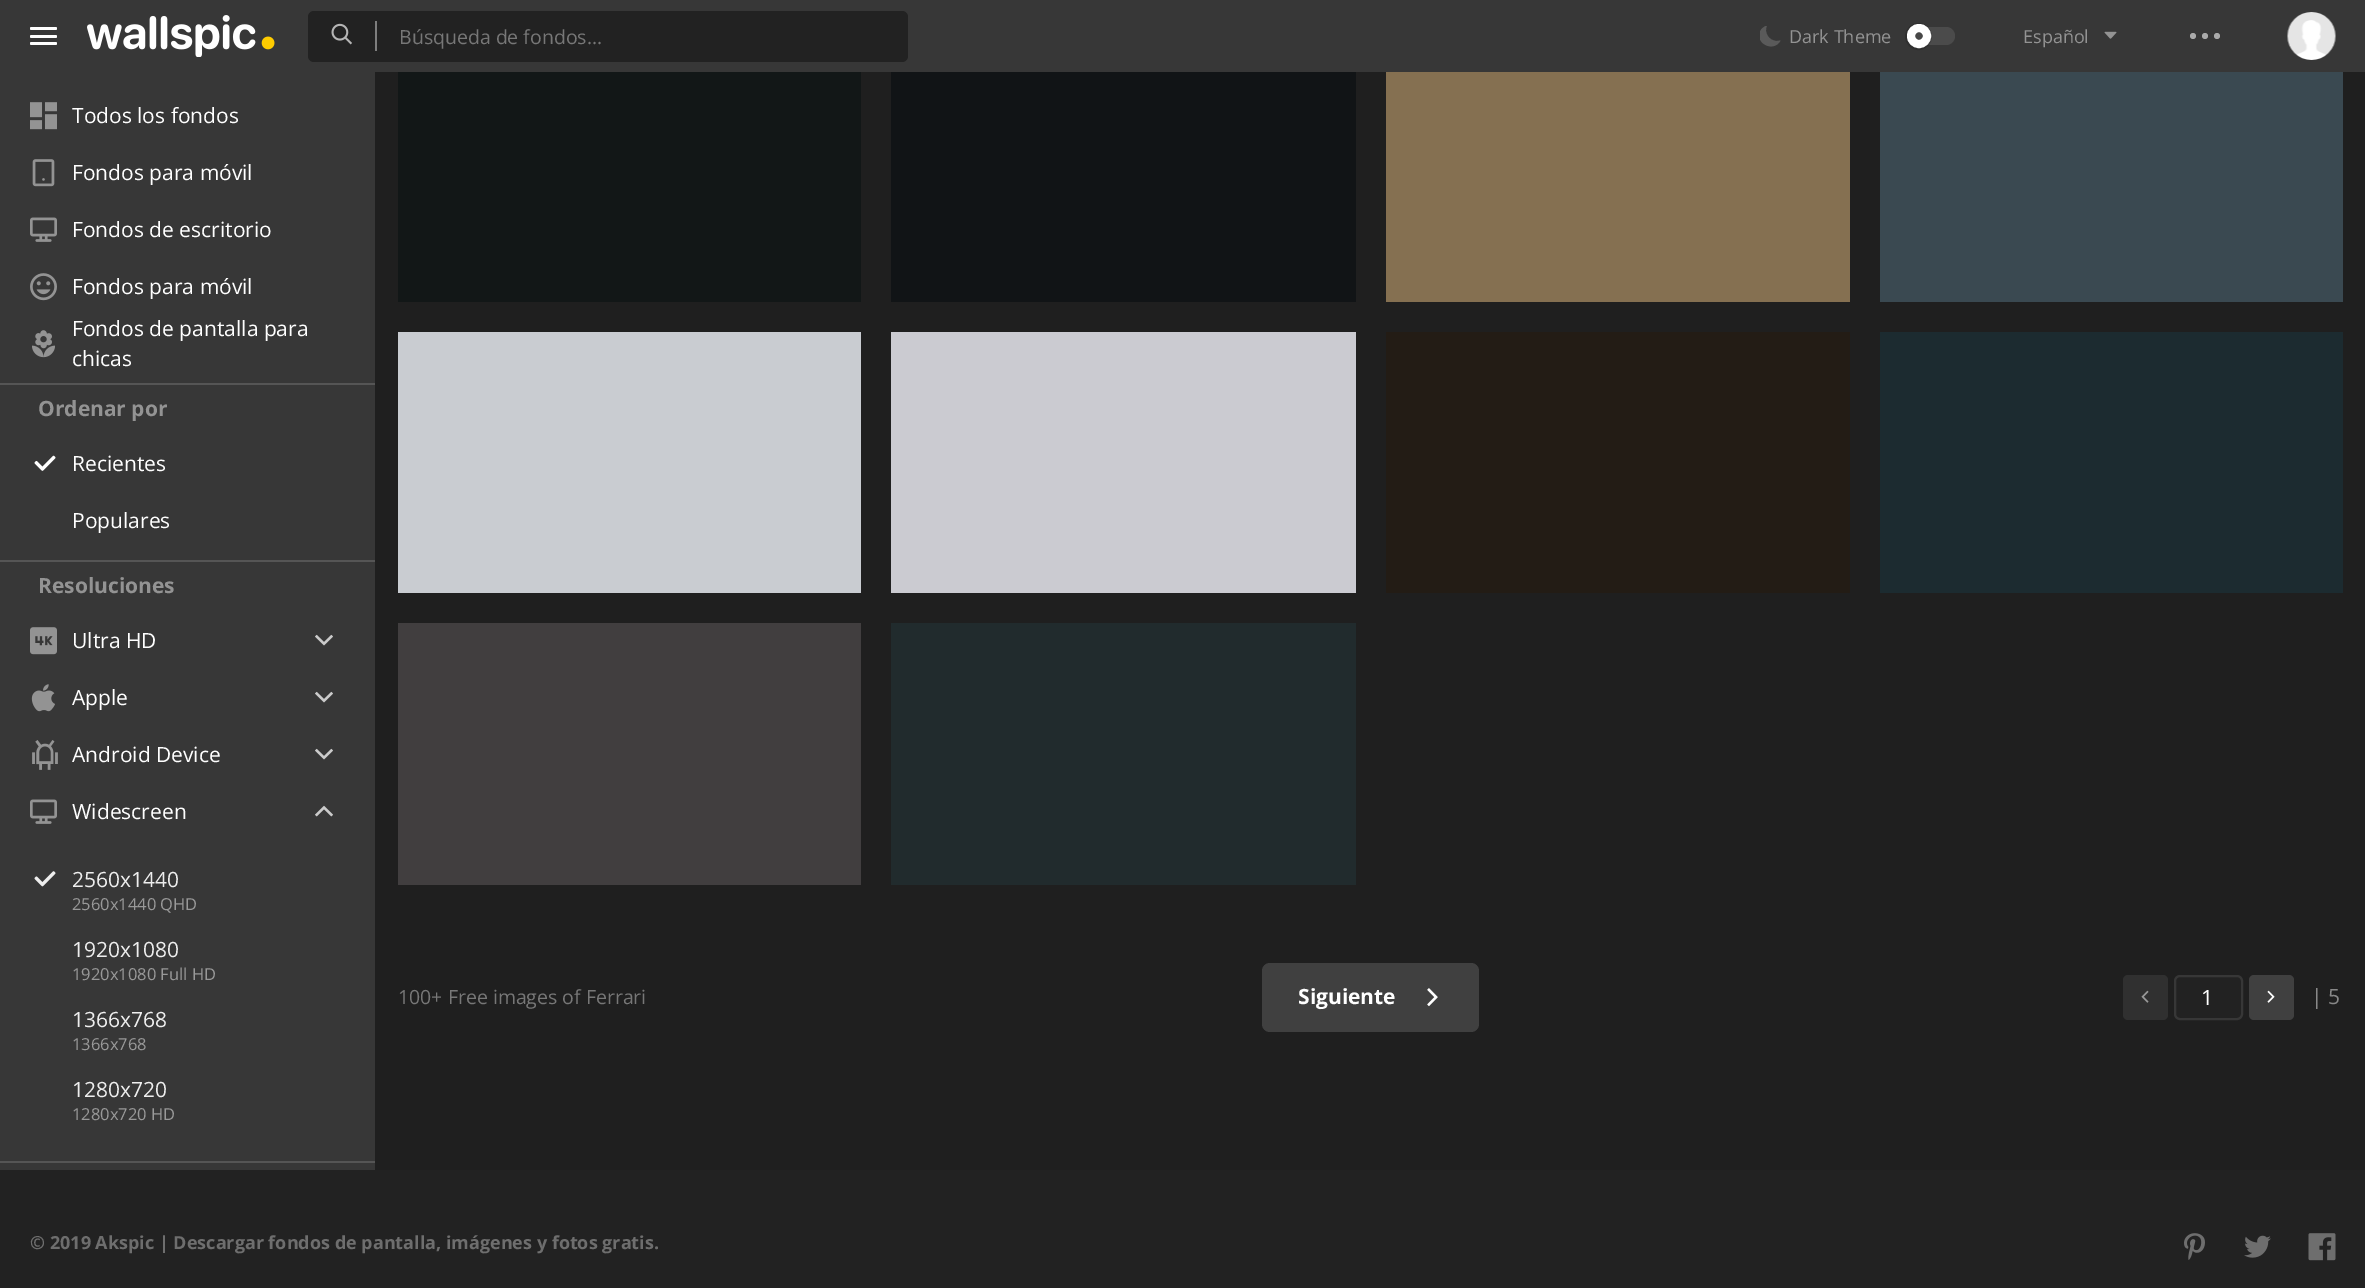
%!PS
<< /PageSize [2365 1288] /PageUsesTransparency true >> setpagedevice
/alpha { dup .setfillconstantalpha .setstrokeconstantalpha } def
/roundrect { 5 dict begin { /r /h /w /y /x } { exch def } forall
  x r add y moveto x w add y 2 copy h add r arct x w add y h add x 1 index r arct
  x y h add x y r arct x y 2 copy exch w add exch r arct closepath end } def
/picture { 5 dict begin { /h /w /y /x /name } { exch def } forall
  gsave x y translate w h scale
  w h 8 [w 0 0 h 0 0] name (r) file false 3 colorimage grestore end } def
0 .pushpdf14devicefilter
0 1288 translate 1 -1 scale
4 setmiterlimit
0.122 setgray
0 0 2365 1288 rectfill
0.216 setgray
0 0 2365 72 rectfill
1 setgray
30 27 27 3 1.5 roundrect fill
30 35 27 3 1.5 roundrect fill
30 42 27 3 1.5 roundrect fill
(img1.rgb) 87 15 188 42 picture
0.133 setgray
308 11 600 51 6 roundrect fill
(img2.rgb) 331 23 21 22 picture
0.494 setgray
375 21 2 30 rectfill
/OpenSans-Regular [19.5 0 0 -19.5 0 0] selectfont
0.467 setgray
399 44 moveto (Búsqueda de fondos...) show
gsave
1760 26 21 21 rectclip
0.353 setgray
newpath 1777 41 moveto 1769 41 1763.5 32.5 1767 25.5 curveto 1764.5 26.5 1762 28 1760.5 30.5 curveto 1754 43.5 1774 53 1780.5 40.5 curveto closepath fill
grestore
0.294 setgray
1907 27 48 18 9 roundrect fill
0.15 alpha
0 setgray
2 setlinewidth
newpath 1918.5 36.5 12.5 0 360 arc closepath stroke
1 alpha
0.278 setgray
newpath 1919 36 8 0 360 arc closepath gsave fill grestore
1 setgray
8 setlinewidth
stroke
/OpenSans-Regular [18 0 0 -18 0 0] selectfont
0.576 setgray
1789 43 moveto (Dark Theme) show
2023 43 moveto (Español) show
(img3.rgb) 2104 31 13 8 picture
0.667 setgray
newpath 2193 36 3 0 360 arc closepath fill
newpath 2205 36 3 0 360 arc closepath fill
newpath 2217 36 3 0 360 arc closepath fill
(img4.rgb) 2287 12 49 48 picture
0.216 setgray
0 72 375 1098 rectfill
(img5.rgb) 30 102 27 28 picture
/OpenSans-Regular [21 0 0 -21 0 0] selectfont
1 setgray
72 123 moveto (Todos los fondos) show
(img6.rgb) 32 159 23 28 picture
72 180 moveto (Fondos para móvil) show
(img7.rgb) 30 217 27 25 picture
72 237 moveto (Fondos de escritorio) show
(img8.rgb) 30 273 27 28 picture
72 294 moveto (Fondos para móvil) show
(img9.rgb) 32 330 23 28 picture
72 336 moveto (Fondos de pantalla para) show
72 366 moveto (chicas) show
0.333 setgray
0 383 375 2 rectfill
/OpenSans-Bold [21 0 0 -21 0 0] selectfont
0.576 setgray
38 416 moveto (Ordenar por) show
(img10.rgb) 34 455 22 16 picture
/OpenSans-Regular [21 0 0 -21 0 0] selectfont
1 setgray
72 471 moveto (Recientes) show
72 528 moveto (Populares) show
0.333 setgray
0 560 375 2 rectfill
/OpenSans-Bold [21 0 0 -21 0 0] selectfont
0.576 setgray
38 593 moveto (Resoluciones) show
(img11.rgb) 30 627 27 28 picture
/OpenSans-Regular [21 0 0 -21 0 0] selectfont
1 setgray
72 648 moveto (Ultra HD) show
(img12.rgb) 315 634 18 12 picture
(img13.rgb) 31 684 24 28 picture
72 705 moveto (Apple) show
(img12.rgb) 315 691 18 12 picture
(img14.rgb) 32 740 26 30 picture
72 762 moveto (Android Device) show
(img12.rgb) 315 748 18 12 picture
(img7.rgb) 30 799 27 25 picture
72 819 moveto (Widescreen) show
(img15.rgb) 315 805 18 12 picture
(img16.rgb) 34 871 22 16 picture
0.933 setgray
72 887 moveto (2560x1440) show
/OpenSans-Regular [16.5 0 0 -16.5 0 0] selectfont
0.6 setgray
72 910 moveto (2560x1440 QHD) show
/OpenSans-Regular [21 0 0 -21 0 0] selectfont
0.933 setgray
72 957 moveto (1920x1080) show
/OpenSans-Regular [16.5 0 0 -16.5 0 0] selectfont
0.6 setgray
72 980 moveto (1920x1080 Full HD) show
/OpenSans-Regular [21 0 0 -21 0 0] selectfont
0.933 setgray
72 1027 moveto (1366x768) show
/OpenSans-Regular [16.5 0 0 -16.5 0 0] selectfont
0.6 setgray
72 1050 moveto (1366x768) show
/OpenSans-Regular [21 0 0 -21 0 0] selectfont
0.933 setgray
72 1097 moveto (1280x720) show
/OpenSans-Regular [16.5 0 0 -16.5 0 0] selectfont
0.6 setgray
72 1120 moveto (1280x720 HD) show
0.333 setgray
0 1161 375 2 rectfill
0.071 0.09 0.09 setrgbcolor
398 72 463 230 rectfill
0.788 0.8 0.82 setrgbcolor
398 332 463 261 rectfill
0.255 0.243 0.247 setrgbcolor
398 623 463 262 rectfill
0.067 0.078 0.086 setrgbcolor
891 72 465 230 rectfill
0.796 0.796 0.82 setrgbcolor
891 332 465 261 rectfill
0.129 0.169 0.176 setrgbcolor
891 623 465 262 rectfill
0.522 0.439 0.318 setrgbcolor
1386 72 464 230 rectfill
0.137 0.11 0.082 setrgbcolor
1386 332 464 261 rectfill
0.227 0.286 0.318 setrgbcolor
1880 72 463 230 rectfill
0.11 0.169 0.188 setrgbcolor
1880 332 463 261 rectfill
/OpenSans-Regular [19.5 0 0 -19.5 0 0] selectfont
0.467 setgray
398 1004 moveto (100+ Free images of Ferrari) show
0.251 setgray
1262 963 217 69 8 roundrect fill
/OpenSans-Bold [21 0 0 -21 0 0] selectfont
1 setgray
1298 1004 moveto (Siguiente) show
(img17.rgb) 1427 988 11 19 picture
0.188 setgray
2123 975 45 45 5 roundrect fill
(img18.rgb) 2141 990 8 13 picture
0.133 setgray
2175 976 67 43 5 roundrect gsave fill grestore
0.216 setgray
2 setlinewidth
stroke
/OpenSans-Regular [21 0 0 -21 0 0] selectfont
1 setgray
2201 1005 moveto (1) show
0.251 setgray
2249 975 45 45 5 roundrect fill
(img19.rgb) 2267 990 8 13 picture
0.533 setgray
2311 1004 moveto (| 5) show
0.133 setgray
0 1170 2365 118 rectfill
/OpenSans-Bold [18 0 0 -18 0 0] selectfont
0.431 setgray
30 1249 moveto (© 2019 Akspic | Descargar fondos de pantalla, imágenes y fotos gratis.) show
(img20.rgb) 2184 1233 21 27 picture
(img21.rgb) 2244 1235 27 23 picture
(img22.rgb) 2308 1233 28 28 picture
.poppdf14devicefilter showpage
